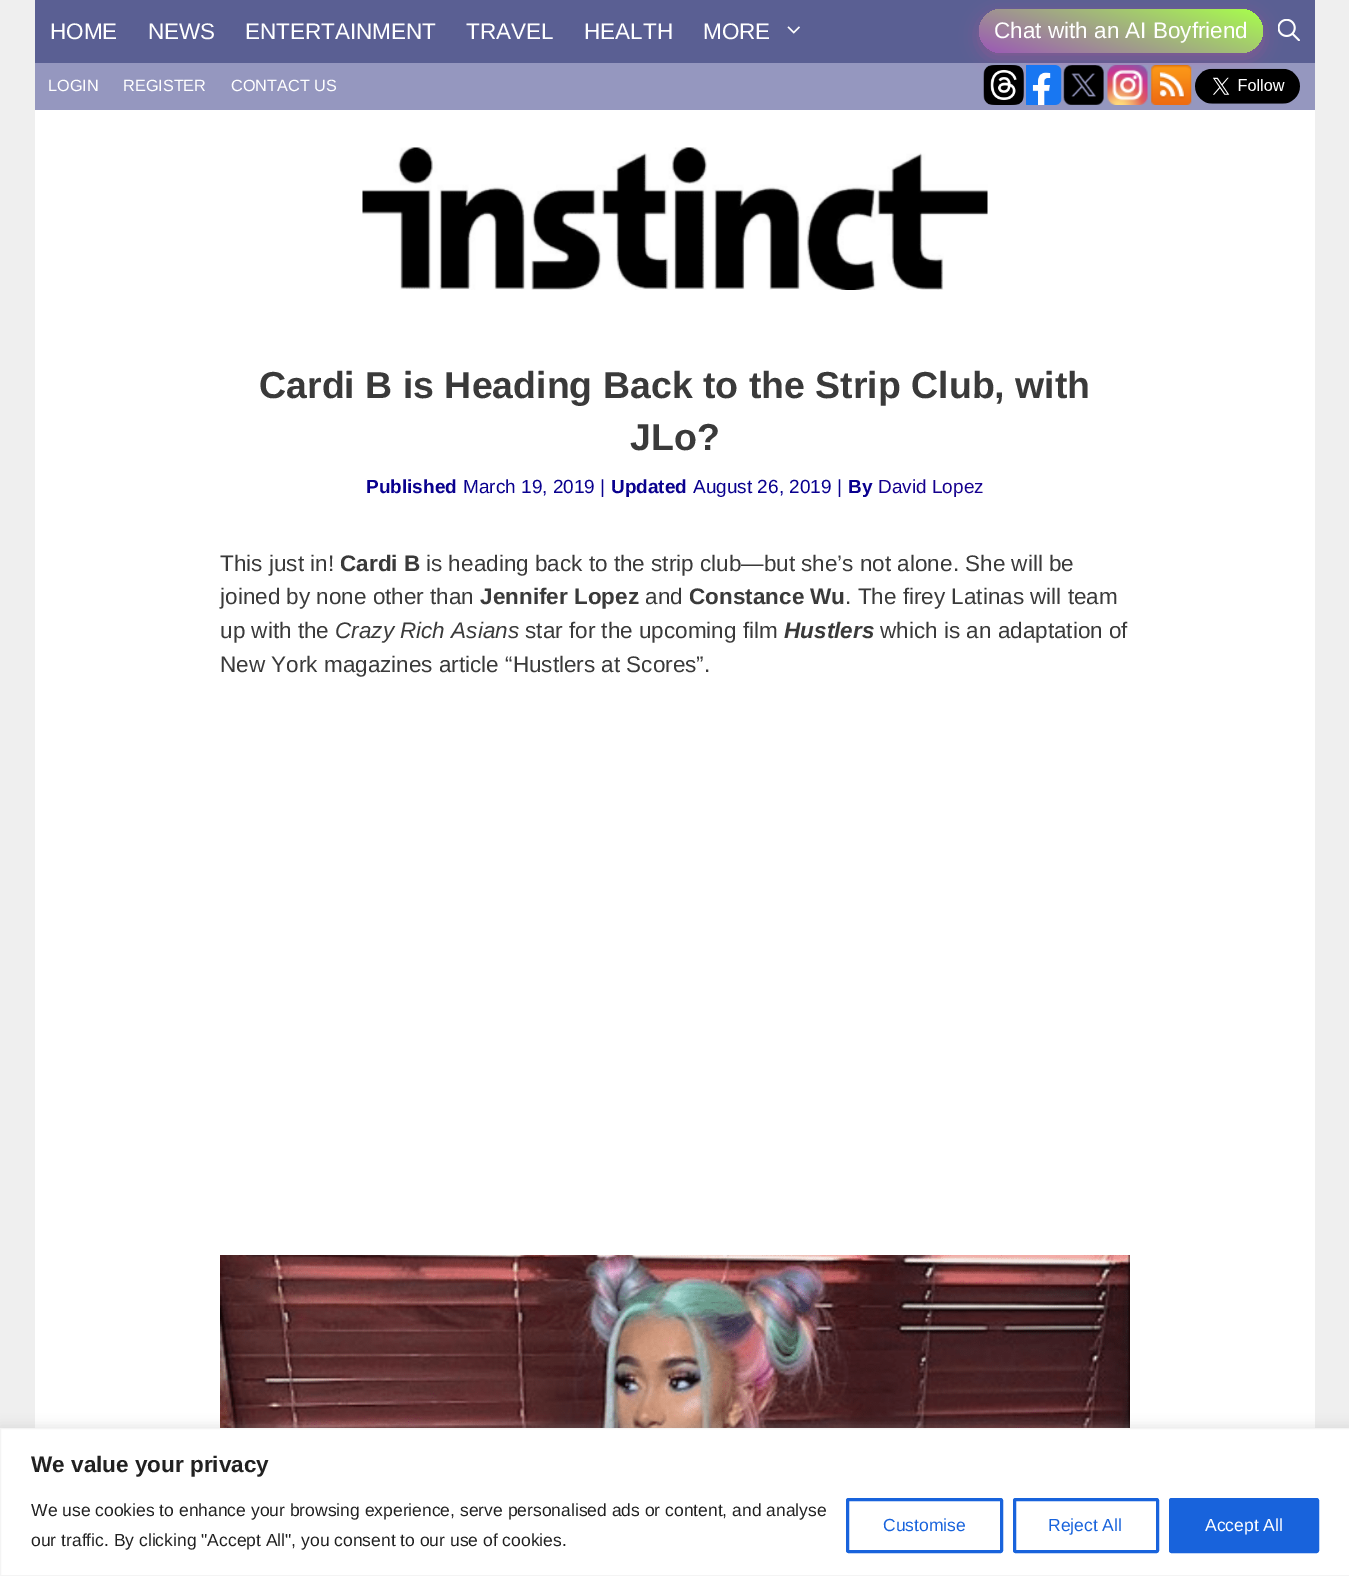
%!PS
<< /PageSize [1349 1576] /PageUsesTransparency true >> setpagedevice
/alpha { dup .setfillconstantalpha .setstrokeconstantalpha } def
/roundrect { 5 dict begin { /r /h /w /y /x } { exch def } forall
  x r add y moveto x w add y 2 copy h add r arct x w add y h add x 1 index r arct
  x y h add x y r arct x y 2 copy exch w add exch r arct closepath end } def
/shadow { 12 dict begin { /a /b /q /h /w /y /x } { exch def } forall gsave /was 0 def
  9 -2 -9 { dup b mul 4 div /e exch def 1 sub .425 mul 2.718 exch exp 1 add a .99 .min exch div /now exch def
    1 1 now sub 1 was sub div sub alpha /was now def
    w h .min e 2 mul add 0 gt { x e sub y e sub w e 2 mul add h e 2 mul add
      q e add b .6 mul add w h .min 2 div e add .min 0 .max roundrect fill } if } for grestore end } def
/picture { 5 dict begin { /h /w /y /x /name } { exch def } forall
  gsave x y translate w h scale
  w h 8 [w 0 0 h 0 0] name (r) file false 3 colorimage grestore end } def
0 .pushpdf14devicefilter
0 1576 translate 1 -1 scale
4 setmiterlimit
0.937 setgray
0 0 1349 1576 rectfill
0.353 0.373 0.576 setrgbcolor
35 0 1280 63 rectfill
/LiberationSans-Regular [22.5 0 0 -22.5 0 0] selectfont
1 setgray
50 39 moveto (HOME) show
148 39 moveto (NEWS) show
245 39 moveto (ENTERTAINMENT) show
466 39 moveto (TRAVEL) show
584 39 moveto (HEALTH) show
703 39 moveto (MORE) show
(img1.rgb) 787 26 13 8 picture
0.584 0.592 0.749 setrgbcolor
35 63 1280 47 rectfill
0.925 0.282 0.6 setrgbcolor
979 14 284 44 22 9 0.3 shadow
gsave 979 9 284 44 22 roundrect clip newpath
<< /ShadingType 2 /ColorSpace /DeviceRGB /Coords [1102 90 1139 -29] /Extend [true true] /Function << /FunctionType 2 /Domain [0 1] /C0 [0.608 0.349 0.714] /C1 [0.659 1 0.298] /N 1 >> >> shfill grestore
1 setgray
994 38 moveto (Chat with an AI Boyfriend) show
(img2.rgb) 1278 19 22 22 picture
/LiberationSans-Regular [16.25 0 0 -16.25 0 0] selectfont
48 91 moveto (LOGIN) show
123 91 moveto (REGISTER) show
231 91 moveto (CONTACT US) show
0.584 0.592 0.749 setrgbcolor
985 63 41 7 rectfill
(img3.rgb) 983 65 41 40 picture
1026 65 35 5 rectfill
(img4.rgb) 1026 65 36 40 picture
1064 65 40 5 rectfill
(img5.rgb) 1063 65 41 40 picture
1108 65 40 5 rectfill
(img6.rgb) 1107 65 41 40 picture
1151 65 40 5 rectfill
(img7.rgb) 1151 65 41 40 picture
(img8.rgb) 1195 68 105 36 picture
1 setgray
35 110 1280 1318 rectfill
(img9.rgb) 362 147 626 143 picture
/LiberationSans-Bold [37.5 0 0 -37.5 0 0] selectfont
0.227 setgray
259 398 moveto (Cardi B is Heading Back to the Strip Club, with) show
630 450 moveto (JLo?) show
/LiberationSans-Bold [19 0 0 -19 0 0] selectfont
0.035 0 0.557 setrgbcolor
366 493 moveto (Published) show
/LiberationSans-Regular [19 0 0 -19 0 0] selectfont
463 493 moveto (March 19, 2019 |) show
/LiberationSans-Bold [19 0 0 -19 0 0] selectfont
611 493 moveto (Updated) show
/LiberationSans-Regular [19 0 0 -19 0 0] selectfont
693 493 moveto (August 26, 2019 |) show
/LiberationSans-Bold [19 0 0 -19 0 0] selectfont
848 493 moveto (By) show
/LiberationSans-Regular [19 0 0 -19 0 0] selectfont
0.082 0 0.557 setrgbcolor
878 493 moveto (David Lopez) show
/LiberationSans-Regular [22.5 0 0 -22.5 0 0] selectfont
0.227 setgray
220 571 moveto (This just in!) show
/LiberationSans-Bold [22.5 0 0 -22.5 0 0] selectfont
340 571 moveto (Cardi B) show
/LiberationSans-Regular [22.5 0 0 -22.5 0 0] selectfont
426 571 moveto (is heading back to the strip club—but she’s not alone. She will be) show
220 604 moveto (joined by none other than) show
/LiberationSans-Bold [22.5 0 0 -22.5 0 0] selectfont
480 604 moveto (Jennifer Lopez) show
/LiberationSans-Regular [22.5 0 0 -22.5 0 0] selectfont
645 604 moveto (and) show
/LiberationSans-Bold [22.5 0 0 -22.5 0 0] selectfont
689 604 moveto (Constance Wu) show
/LiberationSans-Regular [22.5 0 0 -22.5 0 0] selectfont
845 604 moveto (. The firey Latinas will team) show
220 638 moveto (up with the) show
/LiberationSans-Italic [22.5 0 0 -22.5 0 0] selectfont
335 638 moveto (Crazy Rich Asians) show
/LiberationSans-Regular [22.5 0 0 -22.5 0 0] selectfont
525 638 moveto (star for the upcoming film) show
/LiberationSans-BoldItalic [22.5 0 0 -22.5 0 0] selectfont
784 638 moveto (Hustlers) show
/LiberationSans-Regular [22.5 0 0 -22.5 0 0] selectfont
880 638 moveto (which is an adaptation of) show
220 672 moveto (New York magazines article “Hustlers at Scores”.) show
(img10.rgb) 220 1255 910 173 picture
0.675 0.671 0.671 setrgbcolor
0 1426 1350 149 0 6 0.3 shadow
1 setgray
newpath 0.5 1428.5 moveto 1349.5 1428.5 lineto 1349.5 1575.5 lineto 0.5 1575.5 lineto closepath gsave fill grestore
0.957 setgray
stroke
/LiberationSans-Bold [22.5 0 0 -22.5 0 0] selectfont
0.129 setgray
31 1472 moveto (We value your privacy) show
/LiberationSans-Regular [17.5 0 0 -17.5 0 0] selectfont
31 1516 moveto (We use cookies to enhance your browsing experience, serve personalised ads or content, and analyse) show
31 1546 moveto (our traffic. By clicking "Accept All", you consent to our use of cookies.) show
0.094 0.388 0.863 setrgbcolor
3 setlinewidth
847.5 1499.5 154 52 1 roundrect stroke
883 1531 moveto (Customise) show
1014.5 1499.5 143 52 1 roundrect stroke
1048 1531 moveto (Reject All) show
1170.5 1499.5 147 52 1 roundrect gsave fill grestore
stroke
1 setgray
1205 1531 moveto (Accept All) show
.poppdf14devicefilter showpage
